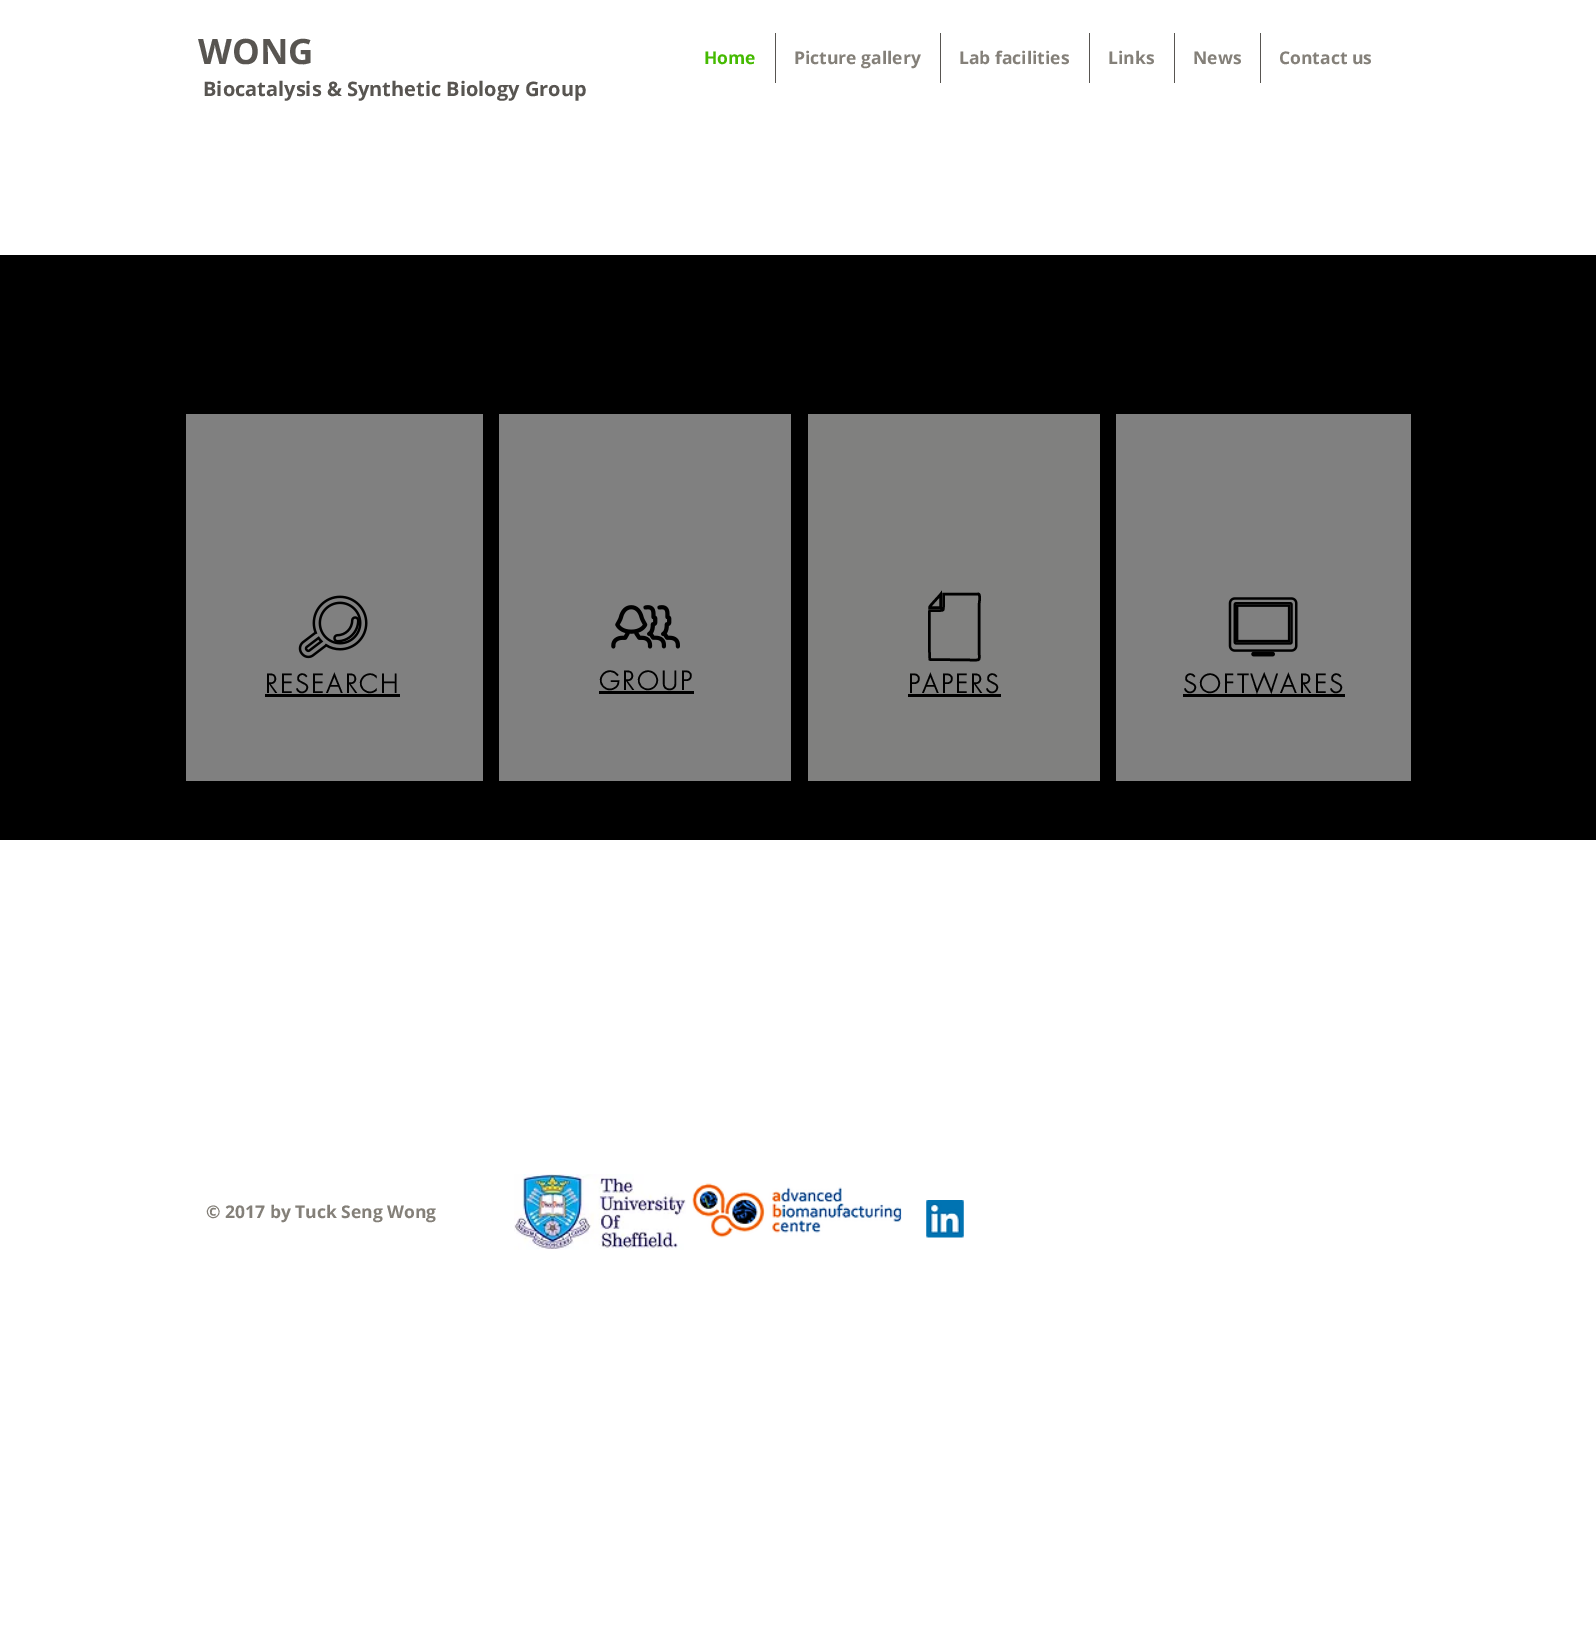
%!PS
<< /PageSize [1596 1634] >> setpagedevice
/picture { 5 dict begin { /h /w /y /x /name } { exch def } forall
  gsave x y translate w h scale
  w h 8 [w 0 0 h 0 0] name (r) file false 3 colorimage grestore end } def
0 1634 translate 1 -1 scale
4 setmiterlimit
1 setgray
0 0 1596 1634 rectfill
/OpenSans-Bold [35 0 0 -35 0 0] selectfont
0.345 0.333 0.318 setrgbcolor
198 64 moveto (WONG) show
/OpenSans-Bold [20 0 0 -20 0 0] selectfont
203 96 moveto (Biocatalysis & Synthetic Biology Group) show
/OpenSans-Bold [17.5 0 0 -17.5 0 0] selectfont
0.271 0.729 0.004 setrgbcolor
704 64 moveto (Home) show
0.345 0.333 0.318 setrgbcolor
775 33 1 50 rectfill
0.518 0.502 0.475 setrgbcolor
794 64 moveto (Picture gallery) show
0.345 0.333 0.318 setrgbcolor
940 33 1 50 rectfill
0.518 0.502 0.475 setrgbcolor
959 64 moveto (Lab facilities) show
0.345 0.333 0.318 setrgbcolor
1089 33 1 50 rectfill
0.518 0.502 0.475 setrgbcolor
1108 64 moveto (Links) show
0.345 0.333 0.318 setrgbcolor
1174 33 1 50 rectfill
0.518 0.502 0.475 setrgbcolor
1193 64 moveto (News) show
0.345 0.333 0.318 setrgbcolor
1260 33 1 50 rectfill
0.518 0.502 0.475 setrgbcolor
1279 64 moveto (Contact us) show
0 setgray
0 255 1596 585 rectfill
0.502 setgray
186 414 297 367 rectfill
(img1.rgb) 298 595 70 64 picture
/futura-Bold [25 0 0 -25 0 0] selectfont
0 setgray
265 693 moveto 2.5 0 (RESEARCH) ashow
265 694 135 3 rectfill
0.502 setgray
499 414 292 367 rectfill
(img2.rgb) 611 605 69 44 picture
0 setgray
599 690 moveto 2.5 0 (GROUP) ashow
599 691 95 3 rectfill
0.502 0.502 0.498 setrgbcolor
808 414 292 367 rectfill
0 setgray
2.5 setlinewidth
newpath 940.5 607.5 moveto 940.5 594.5 lineto 939 596.5 929.5 606 929.5 607.5 curveto closepath stroke
newpath 978 594 moveto 943.5 594 lineto 943.5 606.5 lineto 943.5 610 943.5 610.5 940 610.5 curveto 929.5 610.5 lineto 929.5 615.5 929 659 930 659.5 curveto 970 660 lineto 982 660 979 661.5 979 648 curveto 979 605.5 lineto 979 604 981 593.5 978 594 curveto closepath stroke
908 693 moveto 2.5 0 (PAPERS) ashow
908 694 93 3 rectfill
0.502 setgray
1116 414 295 367 rectfill
(img3.rgb) 1228 597 70 60 picture
0 setgray
1183 693 moveto 2.5 0 (SOFTWARES) ashow
1183 694 162 3 rectfill
/OpenSans-Bold [17.5 0 0 -17.5 0 0] selectfont
0.518 0.502 0.475 setrgbcolor
206 1218 moveto (© 2017 by Tuck Seng Wong) show
(img4.rgb) 514 1174 172 76 picture
(img5.rgb) 692 1183 210 55 picture
(img6.rgb) 926 1200 38 38 picture
showpage
